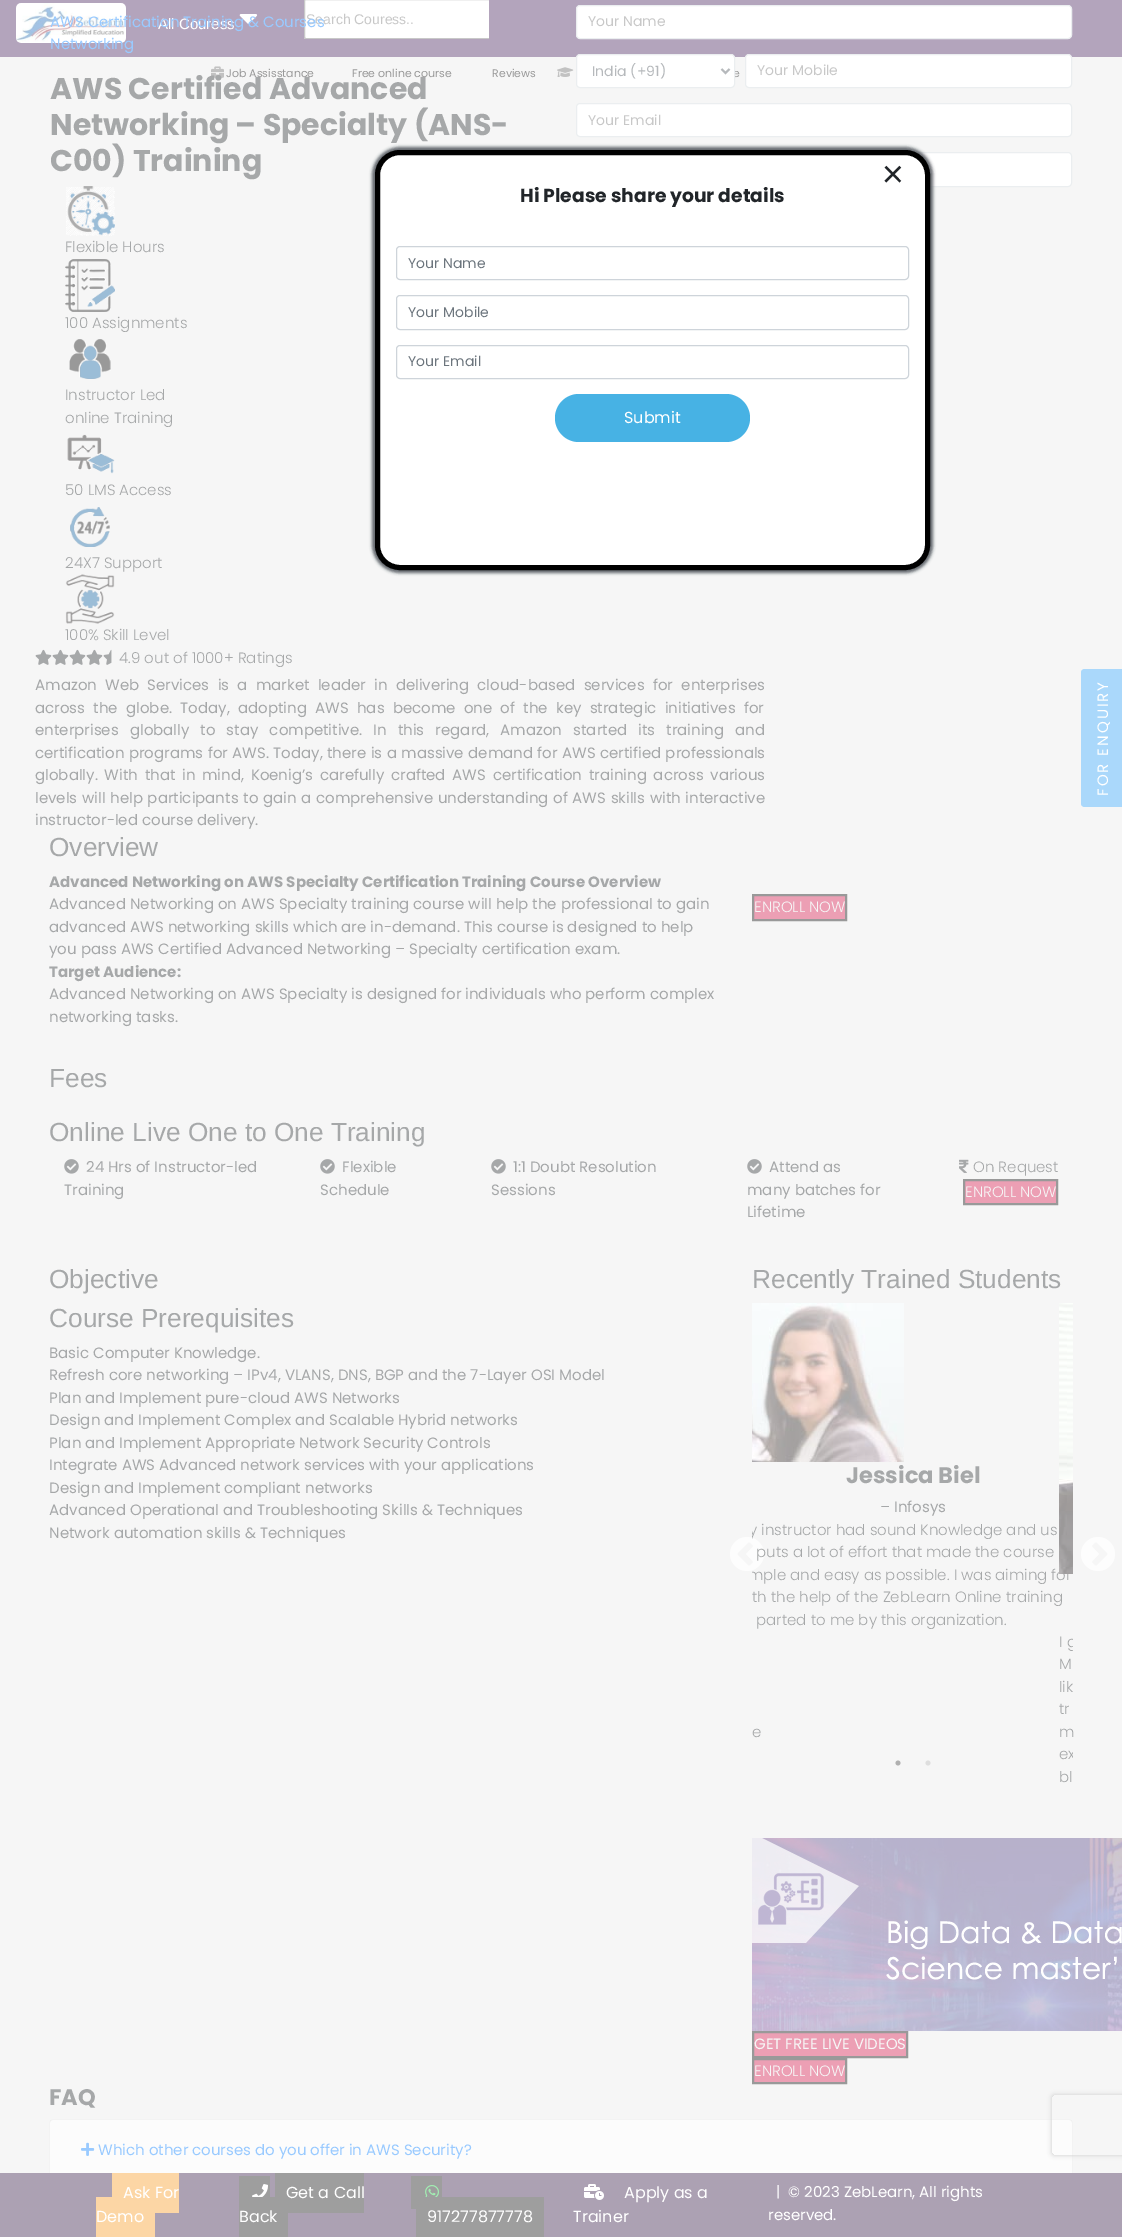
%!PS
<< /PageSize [1122 2237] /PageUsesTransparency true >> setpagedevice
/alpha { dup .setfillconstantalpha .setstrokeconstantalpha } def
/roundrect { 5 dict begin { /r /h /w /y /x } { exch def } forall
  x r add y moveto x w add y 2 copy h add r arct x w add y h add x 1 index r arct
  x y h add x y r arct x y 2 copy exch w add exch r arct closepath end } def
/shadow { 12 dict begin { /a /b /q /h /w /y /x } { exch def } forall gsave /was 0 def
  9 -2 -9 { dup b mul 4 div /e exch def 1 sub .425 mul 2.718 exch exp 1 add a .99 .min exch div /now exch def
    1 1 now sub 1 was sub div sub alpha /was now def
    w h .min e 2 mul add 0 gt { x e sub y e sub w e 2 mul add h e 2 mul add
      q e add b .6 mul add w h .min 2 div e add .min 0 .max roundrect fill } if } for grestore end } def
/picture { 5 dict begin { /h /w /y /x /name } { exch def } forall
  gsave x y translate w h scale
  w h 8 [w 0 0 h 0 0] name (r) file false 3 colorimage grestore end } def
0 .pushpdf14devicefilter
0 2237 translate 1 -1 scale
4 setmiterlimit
0.965 setgray
0 0 1122 2237 rectfill
0.702 0.643 0.737 setrgbcolor
0 0 1122 57 rectfill
(img1.rgb) 16 3 110 40 picture
/LiberationSans-Regular [15 0 0 -15 0 0] selectfont
1 setgray
158 29 moveto (All Couress) show
(img2.rgb) 239 14 19 10 picture
newpath 306 -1 moveto 489 -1 lineto 489 39 lineto 306 39 lineto 305 39 304 38 304 37 curveto 304 1 lineto 304 0 305 -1 306 -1 curveto closepath fill
gsave
274 0 215 39 rectclip
0.784 setgray
304.5 -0.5 214 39 1.5 roundrect stroke
grestore
/LiberationSans-Regular [14 0 0 -14 0 0] selectfont
0.784 setgray
306 24 moveto (Search Couress..) show
/Poppins-Regular [15 0 0 -15 0 0] selectfont
0.6 0.792 1 setrgbcolor
50 27 moveto (AWS Certification Training & Courses) show
50 49 moveto (Networking) show
(img21.rgb) 211 66 13 12 picture
/Poppins-Bold [30 0 0 -30 0 0] selectfont
0.651 0.659 0.663 setrgbcolor
50 99 moveto (AWS Certified Advanced) show
50 135 moveto (Networking – Specialty \(ANS-) show
50 171 moveto (C00\) Training) show
(img3.rgb) 66 186 49 50 picture
/Poppins-Light [15 0 0 -15 0 0] selectfont
65 252 moveto (Flexible Hours) show
(img4.rgb) 65 259 50 53 picture
65 328 moveto (100 Assignments) show
(img5.rgb) 69 339 42 40 picture
65 400 moveto (Instructor Led) show
65 423 moveto (online Training) show
(img6.rgb) 67 434 48 40 picture
65 495 moveto (50 LMS Access) show
(img7.rgb) 70 507 40 40 picture
65 568 moveto (24X7 Support) show
(img8.rgb) 65 574 50 50 picture
65 640 moveto (100% Skill Level) show
1 setgray
576.5 5.5 495 33 3.5 roundrect gsave fill grestore
0.922 0.933 0.941 setrgbcolor
stroke
/Poppins-Regular [14 0 0 -14 0 0] selectfont
0.784 setgray
588 26 moveto (Your Name) show
/Poppins-Regular [11 0 0 -11 0 0] selectfont
0.6 setgray
733 77 moveto (e) show
1 setgray
576.5 54.5 158 33 3.5 roundrect gsave fill grestore
0.922 0.933 0.941 setrgbcolor
stroke
0.714 0.725 0.737 setrgbcolor
2 setlinewidth
newpath 721.5 69 moveto 725.5 73 lineto 729.5 69 lineto stroke
/Poppins-Regular [14 0 0 -14 0 0] selectfont
592 76 moveto (India \(+91\)) show
1 setgray
745.5 54.5 326 33 3.5 roundrect gsave fill grestore
0.922 0.933 0.941 setrgbcolor
1 setlinewidth
stroke
0.784 setgray
757 75 moveto (Your Mobile) show
1 setgray
576.5 103.5 495 33 3.5 roundrect gsave fill grestore
0.922 0.933 0.941 setrgbcolor
stroke
0.784 setgray
588 125 moveto (Your Email) show
1 setgray
576.5 152.5 495 34 3.5 roundrect gsave fill grestore
0.922 0.933 0.941 setrgbcolor
stroke
(img9.rgb) 35 649 17 16 picture
(img9.rgb) 52 649 17 16 picture
(img9.rgb) 69 649 17 16 picture
(img9.rgb) 86 649 17 16 picture
(img10.rgb) 103 649 9 16 picture
/Poppins-Light [15 0 0 -15 0 0] selectfont
0.651 0.659 0.663 setrgbcolor
119 663 moveto (4.9 out of 1000+ Ratings) show
/Poppins-Regular [15 0 0 -15 0 0] selectfont
35 690 moveto 4.25 0 32 (Amazon Web Services is a market leader in delivering cloud-based services for enterprises) widthshow
35 713 moveto 4.25 0 32 (across the globe. Today, adopting AWS has become one of the key strategic initiatives for) widthshow
35 735 moveto 7.1 0 32 (enterprises globally to stay competitive. In this regard, Amazon started its training and) widthshow
35 758 moveto 0.4 0 32 (certification programs for AWS. Today, there is a massive demand for AWS certified professionals) widthshow
35 780 moveto 2.75 0 32 (globally. With that in mind, Koenig’s carefully crafted AWS certification training across various) widthshow
35 803 moveto 0.7 0 32 (levels will help participants to gain a comprehensive understanding of AWS skills with interactive) widthshow
35 825 moveto (instructor-led course delivery.) show
/LiberationSans-Regular [26.25 0 0 -26.25 0 0] selectfont
49 856 moveto (Overview) show
/Poppins-Bold [15 0 0 -15 0 0] selectfont
49 887 moveto (Advanced Networking on AWS Specialty Certification Training Course Overview) show
/Poppins-Regular [15 0 0 -15 0 0] selectfont
49 909 moveto (Advanced Networking on AWS Specialty training course will help the professional to gain) show
49 932 moveto (advanced AWS networking skills which are in-demand. This course is designed to help) show
49 954 moveto (you pass AWS Certified Advanced Networking – Specialty certification exam.) show
/Poppins-Bold [15 0 0 -15 0 0] selectfont
49 977 moveto (Target Audience:) show
/Poppins-Regular [15 0 0 -15 0 0] selectfont
49 999 moveto (Advanced Networking on AWS Specialty is designed for individuals who perform complex) show
49 1022 moveto (networking tasks.) show
0.925 0.624 0.706 setrgbcolor
newpath 753 895 moveto 846 895 lineto 846 920 lineto 753 920 lineto closepath gsave fill grestore
0.6 setgray
2 setlinewidth
stroke
/Poppins-Light [15 0 0 -15 0 0] selectfont
0.965 setgray
754 912 moveto (ENROLL NOW) show
/LiberationSans-Regular [26.25 0 0 -26.25 0 0] selectfont
0.651 0.659 0.663 setrgbcolor
49 1087 moveto (Fees) show
49 1141 moveto (Online Live One to One Training) show
(img11.rgb) 64 1159 15 15 picture
/Poppins-Regular [15 0 0 -15 0 0] selectfont
86 1172 moveto (24 Hrs of Instructor-led) show
64 1195 moveto (Training) show
(img11.rgb) 320 1159 15 15 picture
342 1172 moveto (Flexible) show
320 1195 moveto (Schedule) show
(img11.rgb) 491 1159 15 15 picture
513 1172 moveto (1:1 Doubt Resolution) show
491 1195 moveto (Sessions) show
(img11.rgb) 747 1159 15 15 picture
769 1172 moveto (Attend as) show
747 1195 moveto (many batches for) show
747 1217 moveto (Lifetime) show
(img12.rgb) 959 1159 10 14 picture
/Poppins-Light [15 0 0 -15 0 0] selectfont
973 1172 moveto (On Request) show
0.925 0.624 0.706 setrgbcolor
newpath 964 1180 moveto 1057 1180 lineto 1057 1204 lineto 964 1204 lineto closepath gsave fill grestore
0.6 setgray
stroke
0.965 setgray
965 1197 moveto (ENROLL NOW) show
/LiberationSans-Regular [26.25 0 0 -26.25 0 0] selectfont
0.651 0.659 0.663 setrgbcolor
49 1288 moveto (Objective) show
49 1327 moveto (Course Prerequisites) show
/Poppins-Regular [15 0 0 -15 0 0] selectfont
49 1358 moveto (Basic Computer Knowledge.) show
49 1380 moveto (Refresh core networking – IPv4, VLANS, DNS, BGP and the 7-Layer OSI Model) show
49 1403 moveto (Plan and Implement pure-cloud AWS Networks) show
49 1425 moveto (Design and Implement Complex and Scalable Hybrid networks) show
49 1448 moveto (Plan and Implement Appropriate Network Security Controls) show
49 1470 moveto (Integrate AWS Advanced network services with your applications) show
49 1493 moveto (Design and Implement compliant networks) show
49 1515 moveto (Advanced Operational and Troubleshooting Skills & Techniques) show
49 1538 moveto (Network automation skills & Techniques) show
/LiberationSans-Regular [26.25 0 0 -26.25 0 0] selectfont
752 1288 moveto (Recently Trained Students) show
(img13.rgb) 730 1537 34 34 picture
(img14.rgb) 752 1303 152 159 picture
/Poppins-Bold [22.5 0 0 -22.5 0 0] selectfont
846 1483 moveto (Jessica Biel) show
/Poppins-Regular [15 0 0 -15 0 0] selectfont
880 1512 moveto (– Infosys) show
gsave
752 1303 321 485 rectclip
/Poppins-Light [15 0 0 -15 0 0] selectfont
749 1535 moveto (y instructor had sound Knowledge and us) show
grestore
/Poppins-Light [15 0 0 -15 0 0] selectfont
756 1557 moveto (puts a lot of effort that made the course) show
gsave
752 1303 321 485 rectclip
748 1580 moveto (mple and easy as possible. I was aiming for) show
grestore
752 1602 moveto (th the help of the ZebLearn Online training) show
756 1625 moveto (parted to me by this organization.) show
752 1737 moveto (e) show
(img15.rgb) 1059 1303 14 271 picture
gsave
752 1303 321 485 rectclip
1059 1647 moveto (I g) show
grestore
1059 1669 moveto (M) show
1059 1692 moveto (lik) show
1059 1714 moveto (tr) show
1059 1737 moveto (m) show
gsave
752 1303 321 485 rectclip
1059 1759 moveto (ex) show
grestore
1059 1782 moveto (bl) show
(img16.rgb) 1081 1537 34 34 picture
(img17.rgb) 895 1760 6 6 picture
(img18.rgb) 925 1760 6 6 picture
(img19.rgb) 752 1838 370 193 picture
0.925 0.624 0.706 setrgbcolor
newpath 753 2032 moveto 907 2032 lineto 907 2057 lineto 753 2057 lineto closepath gsave fill grestore
0.6 setgray
stroke
/Poppins-Regular [15 0 0 -15 0 0] selectfont
0.965 setgray
754 2049 moveto (GET FREE LIVE VIDEOS) show
0.925 0.624 0.706 setrgbcolor
newpath 753 2059 moveto 846 2059 lineto 846 2083 lineto 753 2083 lineto closepath gsave fill grestore
0.6 setgray
stroke
/Poppins-Light [15 0 0 -15 0 0] selectfont
0.965 setgray
754 2076 moveto (ENROLL NOW) show
/Poppins-Bold [22.5 0 0 -22.5 0 0] selectfont
0.651 0.659 0.663 setrgbcolor
49 2105 moveto (FAQ) show
1 setgray
newpath 53 2119 moveto 1069 2119 lineto 1071 2119 1073 2121 1073 2123 curveto 1073 2180 lineto 49 2180 lineto 49 2123 lineto 49 2121 51 2119 53 2119 curveto closepath fill
0.12 alpha
0.6 setgray
newpath 53 2119 moveto 1069 2119 lineto 1071 2119 1073 2121 1073 2123 curveto 1073 2180 lineto 49 2180 lineto 49 2123 lineto 49 2121 51 2119 53 2119 curveto closepath 53 2120 moveto 1069 2120 lineto 1071 2120 1072 2121 1072 2123 curveto 1072 2180 lineto 50 2180 lineto 50 2123 lineto 50 2121 51 2120 53 2120 curveto closepath eofill
0.03 alpha
50 2120 1022 53 rectfill
1 alpha
(img20.rgb) 81 2142 14 14 picture
/Poppins-Regular [15 0 0 -15 0 0] selectfont
0.6 0.792 1 setrgbcolor
98 2155 moveto (Which other courses do you offer in AWS Security?) show
/Poppins-Regular [11 0 0 -11 0 0] selectfont
0.6 setgray
226 77 moveto (Job Assisstance) show
352 77 moveto (Free online course) show
492 77 moveto (Reviews) show
(img22.rgb) 557 67 17 10 picture
0.392 0.408 0.431 setrgbcolor
372 147 561 426 28 1.5 1 shadow
1 setgray
377.5 152.5 550 415 22.5 roundrect gsave fill grestore
0 setgray
5 setlinewidth
stroke
/Poppins-Light [40 0 0 -40 0 0] selectfont
0.129 0.145 0.161 setrgbcolor
881 189 moveto (×) show
/Poppins-Bold [18.75 0 0 -18.75 0 0] selectfont
520 202 moveto (Hi Please share your details) show
0.808 0.831 0.855 setrgbcolor
1 setlinewidth
396.5 246.5 512 33 3.5 roundrect stroke
/Poppins-Regular [14 0 0 -14 0 0] selectfont
0.424 0.459 0.49 setrgbcolor
408 268 moveto (Your Name) show
0.808 0.831 0.855 setrgbcolor
396.5 295.5 512 34 3.5 roundrect stroke
0.424 0.459 0.49 setrgbcolor
408 317 moveto (Your Mobile) show
0.808 0.831 0.855 setrgbcolor
396.5 345.5 512 33 3.5 roundrect stroke
0.424 0.459 0.49 setrgbcolor
408 366 moveto (Your Email) show
0.278 0.698 0.894 setrgbcolor
555 394 195 48 24 roundrect fill
/Poppins-Regular [16 0 0 -16 0 0] selectfont
1 setgray
624 423 moveto (Submit) show
0.667 0.847 0.984 setrgbcolor
newpath 1081 803 moveto 1081 673 lineto 1081 671 1082 669 1085 669 curveto 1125 669 lineto 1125 807 lineto 1085 807 lineto 1082 807 1081 805 1081 803 curveto closepath fill
/Poppins-Regular [15 0 0 -15 0 0] selectfont
1 setgray
gsave 1108 796 translate -90 rotate 0 0 moveto 2 0 (FOR ENQUIRY) ashow grestore
gsave
newpath 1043 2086 moveto 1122 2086 lineto 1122 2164 lineto 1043 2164 lineto closepath 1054 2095 moveto 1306 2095 lineto 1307 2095 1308 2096 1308 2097 curveto 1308 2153 lineto 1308 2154 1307 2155 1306 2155 curveto 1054 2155 lineto 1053 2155 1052 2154 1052 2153 curveto 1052 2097 lineto 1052 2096 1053 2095 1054 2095 curveto closepath eoclip newpath
0.8 setgray
1052 2095 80 60 2 2.5 1 shadow
grestore
0.675 0.631 0.702 setrgbcolor
0 2173 1122 64 rectfill
0.988 0.839 0.647 setrgbcolor
112 2173 67 40 rectfill
96 2197 59 40 rectfill
/Poppins-Regular [16 0 0 -16 0 0] selectfont
1 setgray
123 2198 moveto (Ask For) show
96 2222 moveto (Demo) show
0.62 setgray
239 2176 31 21 rectfill
(img23.rgb) 252 2184 16 13 picture
275 2173 89 40 rectfill
239 2197 49 40 rectfill
1 setgray
286 2198 moveto (Get a Call) show
239 2222 moveto (Back) show
0.62 setgray
411 2176 31 33 rectfill
(img24.rgb) 425 2185 14 12 picture
416 2197 128 40 rectfill
1 setgray
427 2222 moveto (917277877778) show
(img25.rgb) 584 2184 20 16 picture
624 2198 moveto (Apply as a) show
573 2222 moveto (Trainer) show
/Poppins-Regular [15 0 0 -15 0 0] selectfont
776 2197 moveto (|  © 2023 ZebLearn, All rights) show
768 2220 moveto (reserved.) show
.poppdf14devicefilter showpage
